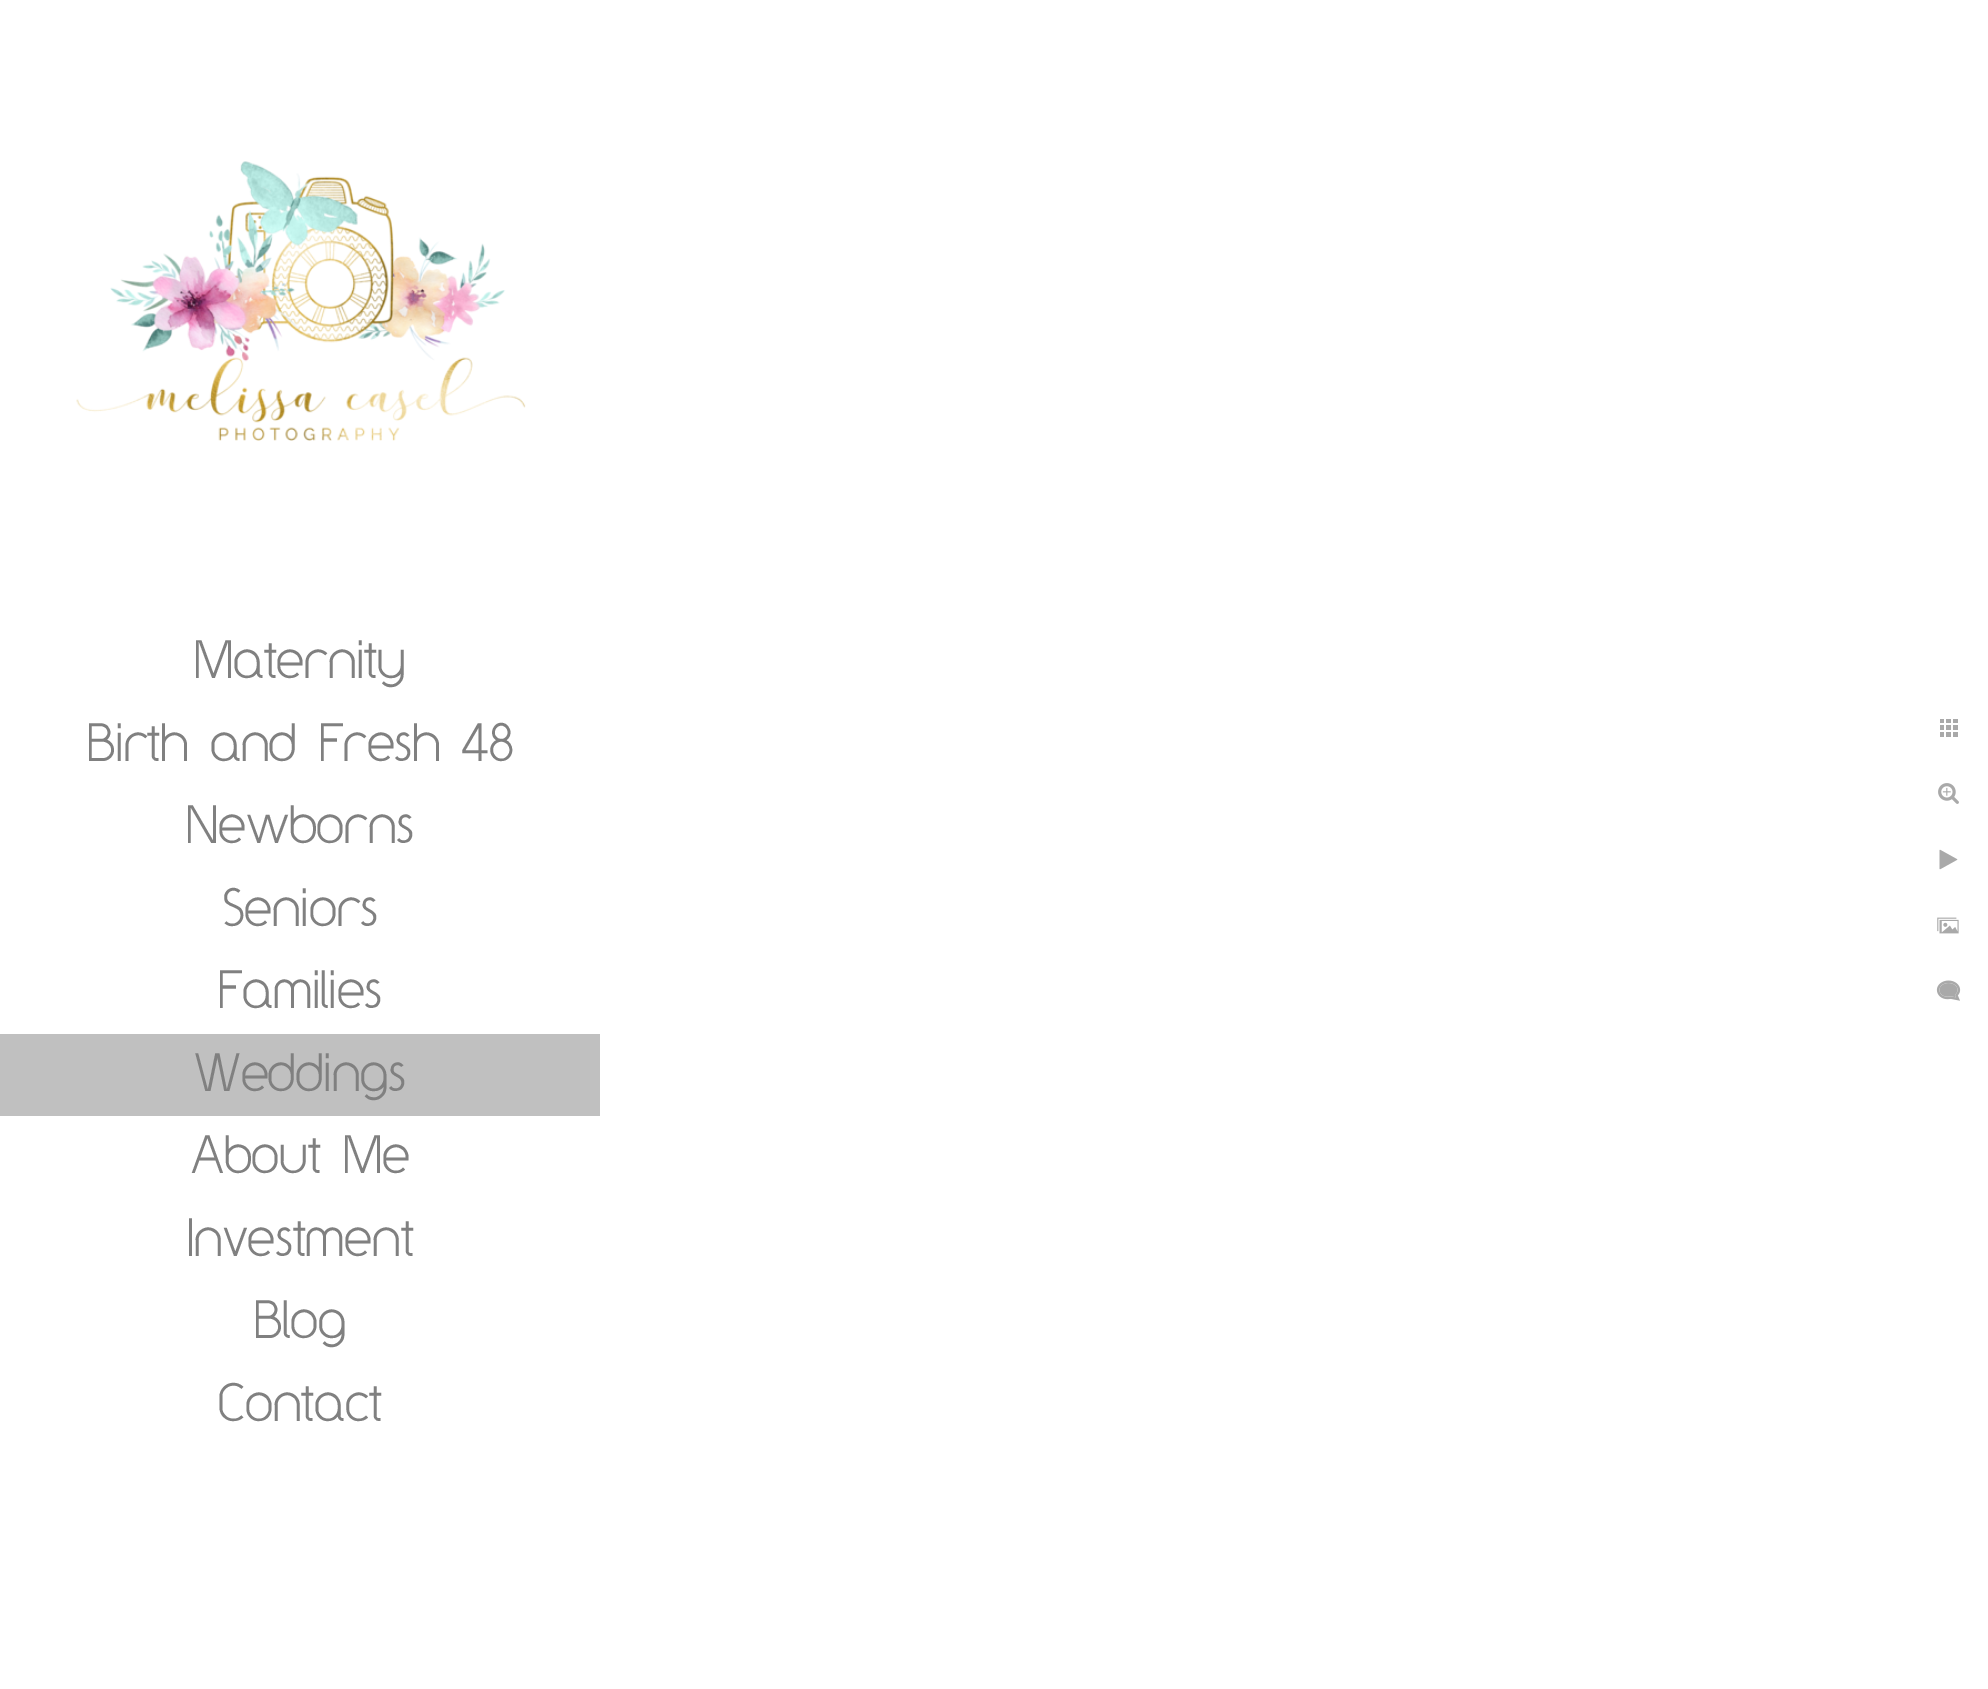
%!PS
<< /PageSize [1988 1689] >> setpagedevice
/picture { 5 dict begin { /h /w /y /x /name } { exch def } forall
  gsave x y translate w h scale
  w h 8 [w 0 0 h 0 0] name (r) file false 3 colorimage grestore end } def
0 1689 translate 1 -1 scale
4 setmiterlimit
1 setgray
0 0 1988 1689 rectfill
(img1.rgb) 76 161 450 280 picture
/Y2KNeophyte-Regular [45 0 0 -45 0 0] selectfont
0.502 setgray
194 678 moveto (Maternity) show
87 761 moveto (Birth and Fresh 48) show
186 843 moveto (Newborns) show
223 926 moveto (Seniors) show
218 1008 moveto (Families) show
0.753 setgray
0 1034 600 82 rectfill
0.502 setgray
194 1091 moveto (Weddings) show
191 1173 moveto (About Me) show
187 1256 moveto (Investment) show
254 1338 moveto (Blog) show
218 1421 moveto (Contact) show
(img2.rgb) 1940 719 18 18 picture
(img3.rgb) 1938 783 21 21 picture
(img4.rgb) 1939 849 19 21 picture
(img5.rgb) 1937 917 22 17 picture
(img6.rgb) 1936 980 25 21 picture
showpage
